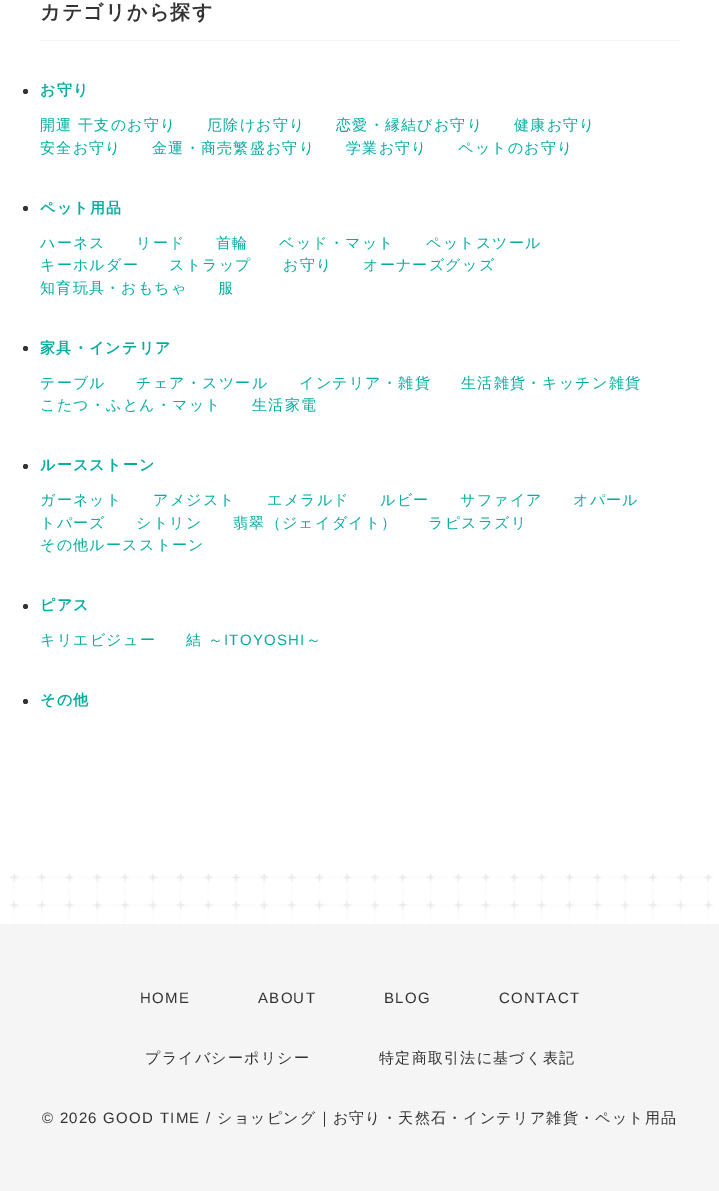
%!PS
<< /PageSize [719 1191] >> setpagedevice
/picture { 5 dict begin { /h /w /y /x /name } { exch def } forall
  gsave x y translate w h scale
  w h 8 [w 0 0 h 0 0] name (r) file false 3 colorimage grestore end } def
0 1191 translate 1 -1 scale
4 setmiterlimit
1 setgray
0 0 719 1191 rectfill
(img1.rgb) 10 874 703 50 picture
0.961 setgray
40 40 640 1 rectfill
/WenQuanYiZenHei-Bold [20 0 0 -20 0 0] selectfont
0.2 setgray
40 19 moveto 1.25 0 (カテゴリから探す) ashow
newpath 25.5 91.5 2.5 0 360 arc closepath fill
/WenQuanYiZenHei-Bold [15 0 0 -15 0 0] selectfont
0 0.682 0.624 setrgbcolor
40 95 moveto 1.25 0 (お守り) ashow
/WenQuanYiZenHei-Medium [15 0 0 -15 0 0] selectfont
40 130 moveto 1.25 0 (開運 干支のお守り) ashow
207 130 moveto 1.25 0 (厄除けお守り) ashow
336 130 moveto 1.25 0 (恋愛・縁結びお守り) ashow
514 130 moveto 1.25 0 (健康お守り) ashow
40 153 moveto 1.25 0 (安全お守り) ashow
152 153 moveto 1.25 0 (金運・商売繁盛お守り) ashow
346 153 moveto 1.25 0 (学業お守り) ashow
458 153 moveto 1.25 0 (ペットのお守り) ashow
0.2 setgray
newpath 25.5 208.5 2.5 0 360 arc closepath fill
/WenQuanYiZenHei-Bold [15 0 0 -15 0 0] selectfont
0 0.682 0.624 setrgbcolor
40 213 moveto 1.25 0 (ペット用品) ashow
/WenQuanYiZenHei-Medium [15 0 0 -15 0 0] selectfont
40 248 moveto 1.25 0 (ハーネス) ashow
136 248 moveto 1.25 0 (リード) ashow
216 248 moveto 1.25 0 (首輪) ashow
279 248 moveto 1.25 0 (ベッド・マット) ashow
426 248 moveto 1.25 0 (ペットスツール) ashow
40 270 moveto 1.25 0 (キーホルダー) ashow
169 270 moveto 1.25 0 (ストラップ) ashow
283 270 moveto 1.25 0 (お守り) ashow
363 270 moveto 1.25 0 (オーナーズグッズ) ashow
40 293 moveto 1.25 0 (知育玩具・おもちゃ) ashow
218 293 moveto 1.25 0 (服) ashow
0.2 setgray
newpath 25.5 348.5 2.5 0 360 arc closepath fill
/WenQuanYiZenHei-Bold [15 0 0 -15 0 0] selectfont
0 0.682 0.624 setrgbcolor
40 353 moveto 1.25 0 (家具・インテリア) ashow
/WenQuanYiZenHei-Medium [15 0 0 -15 0 0] selectfont
40 388 moveto 1.25 0 (テーブル) ashow
136 388 moveto 1.25 0 (チェア・スツール) ashow
299 388 moveto 1.25 0 (インテリア・雑貨) ashow
461 388 moveto 1.25 0 (生活雑貨・キッチン雑貨) ashow
40 410 moveto 1.25 0 (こたつ・ふとん・マット) ashow
252 410 moveto 1.25 0 (生活家電) ashow
0.2 setgray
newpath 25.5 466.5 2.5 0 360 arc closepath fill
/WenQuanYiZenHei-Bold [15 0 0 -15 0 0] selectfont
0 0.682 0.624 setrgbcolor
40 470 moveto 1.25 0 (ルースストーン) ashow
/WenQuanYiZenHei-Medium [15 0 0 -15 0 0] selectfont
40 505 moveto 1.25 0 (ガーネット) ashow
153 505 moveto 1.25 0 (アメジスト) ashow
267 505 moveto 1.25 0 (エメラルド) ashow
380 505 moveto 1.25 0 (ルビー) ashow
460 505 moveto 1.25 0 (サファイア) ashow
573 505 moveto 1.25 0 (オパール) ashow
40 528 moveto 1.25 0 (トパーズ) ashow
136 528 moveto 1.25 0 (シトリン) ashow
233 528 moveto 1.25 0 (翡翠（ジェイダイト）) ashow
428 528 moveto 1.25 0 (ラピスラズリ) ashow
40 550 moveto 1.25 0 (その他ルースストーン) ashow
0.2 setgray
newpath 25.5 606.5 2.5 0 360 arc closepath fill
/WenQuanYiZenHei-Bold [15 0 0 -15 0 0] selectfont
0 0.682 0.624 setrgbcolor
40 610 moveto 1.25 0 (ピアス) ashow
/WenQuanYiZenHei-Medium [15 0 0 -15 0 0] selectfont
40 645 moveto 1.25 0 (キリエビジュー) ashow
186 645 moveto 1.25 0 (結 ～) ashow
/LiberationSans-Regular [15 0 0 -15 0 0] selectfont
224 645 moveto 1.25 0 (ITOYOSHI) ashow
/WenQuanYiZenHei-Medium [15 0 0 -15 0 0] selectfont
306 645 moveto 1.25 0 (～) ashow
0.2 setgray
newpath 25.5 701.5 2.5 0 360 arc closepath fill
/WenQuanYiZenHei-Bold [15 0 0 -15 0 0] selectfont
0 0.682 0.624 setrgbcolor
40 705 moveto 1.25 0 (その他) ashow
0.961 setgray
0 924 719 267 rectfill
/LiberationSans-Regular [15 0 0 -15 0 0] selectfont
0.2 setgray
140 1003 moveto 1.25 0 (HOME) ashow
258 1003 moveto 1.25 0 (ABOUT) ashow
384 1003 moveto 1.25 0 (BLOG) ashow
499 1003 moveto 1.25 0 (CONTACT) ashow
/WenQuanYiZenHei-Medium [15 0 0 -15 0 0] selectfont
145 1063 moveto 1.25 0 (プライバシーポリシー) ashow
379 1063 moveto 1.25 0 (特定商取引法に基づく表記) ashow
/LiberationSans-Regular [15 0 0 -15 0 0] selectfont
42 1123 moveto 1.25 0 (© 2026 GOOD TIME /) ashow
/WenQuanYiZenHei-Medium [15 0 0 -15 0 0] selectfont
217 1123 moveto 1.25 0 (ショッピング｜お守り・天然石・インテリア雑貨・ペット用品) ashow
showpage
